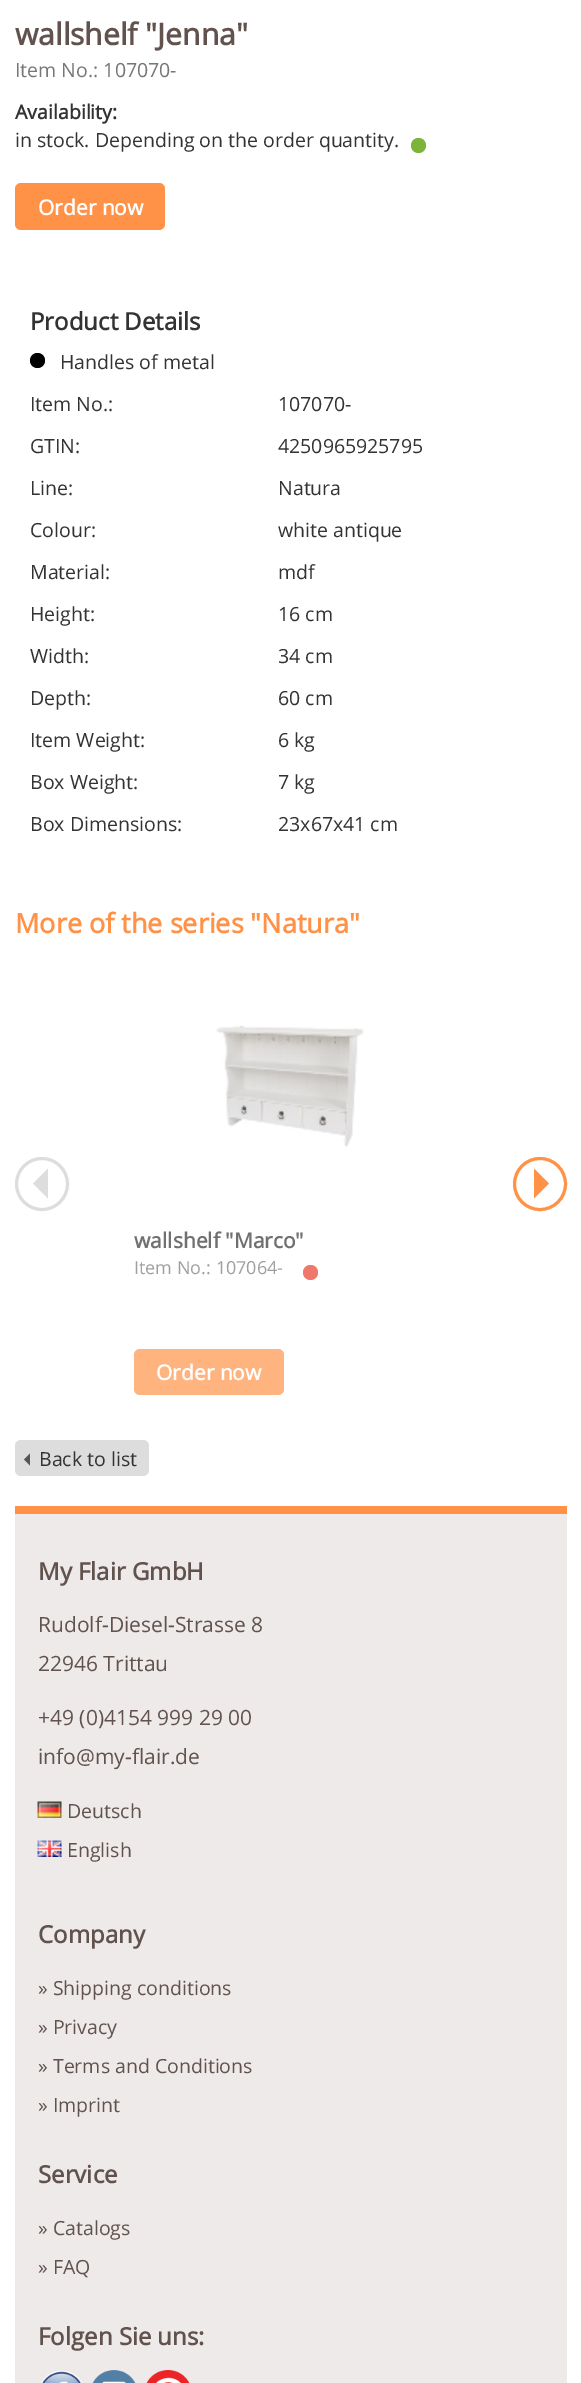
%!PS
<< /PageSize [581 2383] >> setpagedevice
/roundrect { 5 dict begin { /r /h /w /y /x } { exch def } forall
  x r add y moveto x w add y 2 copy h add r arct x w add y h add x 1 index r arct
  x y h add x y r arct x y 2 copy exch w add exch r arct closepath end } def
/picture { 5 dict begin { /h /w /y /x /name } { exch def } forall
  gsave x y translate w h scale
  w h 8 [w 0 0 h 0 0] name (r) file false 3 colorimage grestore end } def
0 2383 translate 1 -1 scale
4 setmiterlimit
1 setgray
0 0 581 2383 rectfill
/OpenSans-Bold [30 0 0 -30 0 0] selectfont
0.38 0.322 0.306 setrgbcolor
15 45 moveto (wallshelf "Jenna") show
/OpenSans-Regular [19.5 0 0 -19.5 0 0] selectfont
0.467 setgray
15 77 moveto (Item No.: 107070-) show
/OpenSans-Bold [19.5 0 0 -19.5 0 0] selectfont
0.2 setgray
15 119 moveto (Availability:) show
/OpenSans-Regular [19.5 0 0 -19.5 0 0] selectfont
15 147 moveto (in stock. Depending on the order quantity.) show
0.486 0.702 0.224 setrgbcolor
newpath 418.5 145.5 7.5 0 360 arc closepath fill
1 0.573 0.275 setrgbcolor
15 183 150 47 6 roundrect fill
/OpenSans-Bold [21 0 0 -21 0 0] selectfont
1 setgray
38 215 moveto (Order now) show
/OpenSans-Bold [24 0 0 -24 0 0] selectfont
0.2 setgray
30 330 moveto (Product Details) show
0 setgray
newpath 37.5 360.5 7.5 0 360 arc closepath fill
/OpenSans-Regular [19.5 0 0 -19.5 0 0] selectfont
0.2 setgray
60 369 moveto (Handles of metal) show
30 411 moveto (Item No.:) show
278 411 moveto (107070-) show
30 453 moveto (GTIN:) show
278 453 moveto (4250965925795) show
30 495 moveto (Line:) show
278 495 moveto (Natura) show
30 537 moveto (Colour:) show
278 537 moveto (white antique) show
30 579 moveto (Material:) show
278 579 moveto (mdf) show
30 621 moveto (Height:) show
278 621 moveto (16 cm) show
30 663 moveto (Width:) show
278 663 moveto (34 cm) show
30 705 moveto (Depth:) show
278 705 moveto (60 cm) show
30 747 moveto (Item Weight:) show
278 747 moveto (6 kg) show
30 789 moveto (Box Weight:) show
278 789 moveto (7 kg) show
30 831 moveto (Box Dimensions:) show
278 831 moveto (23x67x41 cm) show
/OpenSans-Bold [27 0 0 -27 0 0] selectfont
1 0.573 0.275 setrgbcolor
15 933 moveto (More of the series "Natura") show
0.867 setgray
3 setlinewidth
newpath 42 1184 25.5 0 360 arc closepath stroke
newpath 48 1168.5 moveto 48 1198.5 lineto 33 1183.5 lineto closepath fill
1 0.573 0.275 setrgbcolor
newpath 540 1184 25.5 0 360 arc closepath stroke
newpath 534 1198.5 moveto 534 1168.5 lineto 549 1183.5 lineto closepath fill
(img1.rgb) 216 1025 148 122 picture
/OpenSans-Bold [21 0 0 -21 0 0] selectfont
0.439 setgray
134 1248 moveto (wallshelf "Marco") show
/OpenSans-Regular [18 0 0 -18 0 0] selectfont
0.627 setgray
134 1274 moveto (Item No.: 107064-) show
0.941 0.467 0.42 setrgbcolor
newpath 310.5 1272.5 7.5 0 360 arc closepath fill
1 0.702 0.494 setrgbcolor
134 1349 150 46 6 roundrect fill
/OpenSans-Bold [21 0 0 -21 0 0] selectfont
1 setgray
156 1380 moveto (Order now) show
0.867 setgray
15 1440 134 36 6 roundrect fill
0.333 setgray
newpath 30 1453.5 moveto 30 1465.5 lineto 24 1459.5 lineto closepath fill
/OpenSans-Regular [19.5 0 0 -19.5 0 0] selectfont
0.2 setgray
39 1466 moveto (Back to list) show
0.929 0.918 0.914 setrgbcolor
15 1514 552 869 rectfill
1 0.573 0.275 setrgbcolor
15 1506 552 8 rectfill
/OpenSans-Bold [24 0 0 -24 0 0] selectfont
0.38 0.322 0.306 setrgbcolor
38 1580 moveto (My Flair GmbH) show
/OpenSans-Regular [21 0 0 -21 0 0] selectfont
38 1632 moveto (Rudolf-Diesel-Strasse 8) show
38 1671 moveto (22946 Trittau) show
38 1725 moveto (+49 \(0\)4154 999 29 00) show
38 1764 moveto (info@my-flair.de) show
(img2.rgb) 37 1801 25 17 picture
/OpenSans-Regular [19.5 0 0 -19.5 0 0] selectfont
67 1818 moveto (Deutsch) show
(img3.rgb) 37 1840 25 17 picture
67 1857 moveto (English) show
/OpenSans-Bold [24 0 0 -24 0 0] selectfont
38 1943 moveto (Company) show
/OpenSans-Regular [19.5 0 0 -19.5 0 0] selectfont
38 1995 moveto (» Shipping conditions) show
38 2034 moveto (» Privacy) show
38 2073 moveto (» Terms and Conditions) show
38 2112 moveto (» Imprint) show
/OpenSans-Bold [24 0 0 -24 0 0] selectfont
38 2183 moveto (Service) show
/OpenSans-Regular [19.5 0 0 -19.5 0 0] selectfont
38 2235 moveto (» Catalogs) show
38 2274 moveto (» FAQ) show
/OpenSans-Bold [24 0 0 -24 0 0] selectfont
38 2345 moveto (Folgen Sie uns:) show
(img4.rgb) 41 2370 41 13 picture
(img5.rgb) 92 2370 44 13 picture
(img6.rgb) 146 2370 44 13 picture
showpage
